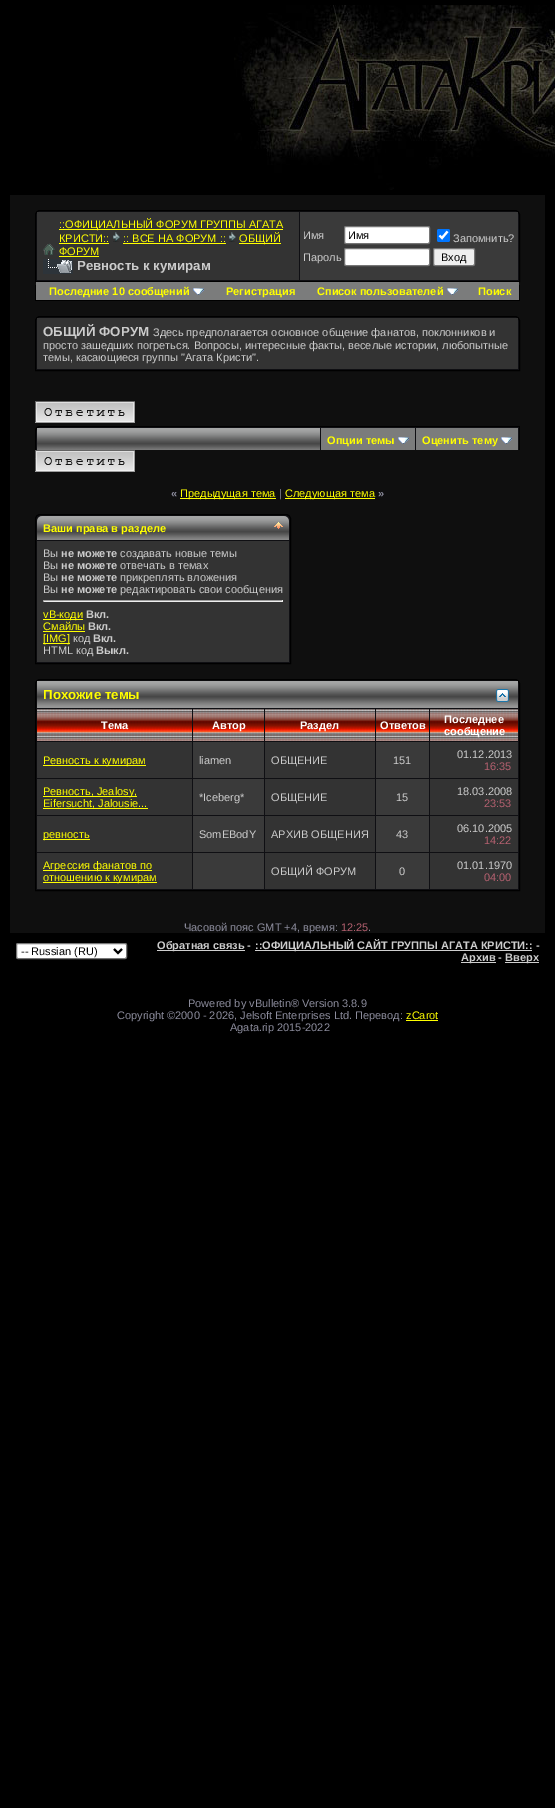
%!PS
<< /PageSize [555 1808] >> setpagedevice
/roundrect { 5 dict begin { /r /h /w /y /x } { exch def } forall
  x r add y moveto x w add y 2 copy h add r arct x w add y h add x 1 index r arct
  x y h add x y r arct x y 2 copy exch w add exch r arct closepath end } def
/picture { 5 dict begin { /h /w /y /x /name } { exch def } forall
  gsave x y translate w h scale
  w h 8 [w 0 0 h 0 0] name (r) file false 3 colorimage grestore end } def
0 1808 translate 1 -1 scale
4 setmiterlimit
0 setgray
0 0 555 1808 rectfill
(img1.rgb) 234 5 321 185 picture
0.059 setgray
10 195 535 255 rectfill
0.059 0.059 0.075 setrgbcolor
newpath 40 210.5 moveto 515 210.5 lineto 517.5 210.5 519.5 212.5 519.5 215 curveto 519.5 281.5 lineto 35.5 281.5 lineto 35.5 215 lineto 35.5 212.5 37.5 210.5 40 210.5 curveto closepath gsave fill grestore
0 setgray
stroke
0.2 setgray
37 212 262 68 rectfill
(img2.rgb) 43 243 12 12 picture
1 1 0 setrgbcolor
59 229 224 1 rectfill
/LiberationSans-Regular [11 0 0 -11 0 0] selectfont
59 228 moveto (::ОФИЦИАЛЬНЫЙ ФОРУМ ГРУППЫ АГАТА) show
59 242 moveto (КРИСТИ::) show
59 243 50 1 rectfill
(img3.rgb) 113 232 7 10 picture
123 242 moveto (:: ВСЕ НА ФОРУМ ::) show
123 243 103 1 rectfill
(img3.rgb) 229 232 7 10 picture
239 243 42 1 rectfill
239 242 moveto (ОБЩИЙ) show
59 255 moveto (ФОРУМ) show
59 256 40 1 rectfill
(img4.rgb) 43 259 30 15 picture
/LiberationSans-Bold [13.25 0 0 -13.25 0 0] selectfont
0.8 setgray
77 270 moveto (Ревность к кумирам) show
0.227 setgray
300 212 218 68 rectfill
/LiberationSans-Regular [11 0 0 -11 0 0] selectfont
0.8 setgray
303 239 moveto (Имя) show
1 setgray
344.5 226.5 85 17 1.5 roundrect gsave fill grestore
0.463 setgray
stroke
0 setgray
348 239 moveto (Имя) show
0 0.459 1 setrgbcolor
437 229 13 13 2 roundrect fill
1 setgray
2.1 setlinewidth
newpath 439.5 235.5 moveto 442 238 lineto 447.5 231.5 lineto stroke
0.8 setgray
453 242 moveto (Запомнить?) show
303 261 moveto (Пароль) show
1 setgray
344.5 248.5 85 17 1.5 roundrect gsave fill grestore
0.463 setgray
1 setlinewidth
stroke
0.937 setgray
433.5 248.5 41 17 1.5 roundrect gsave fill grestore
0.463 setgray
stroke
0 setgray
441 261 moveto (Вход) show
519 285 1 16 rectfill
35 300 485 1 rectfill
35 285 1 16 rectfill
0.482 0.486 0.486 setrgbcolor
36 282 483 18 rectfill
/LiberationSans-Bold [11 0 0 -11 0 0] selectfont
1 1 0 setrgbcolor
49 295 moveto (Последние 10 сообщений) show
(img5.rgb) 193 288 11 7 picture
226 295 moveto (Регистрация) show
317 295 moveto (Список пользователей) show
(img5.rgb) 447 288 11 7 picture
478 295 moveto (Поиск) show
0.059 0.059 0.075 setrgbcolor
newpath 40 316.5 moveto 515 316.5 lineto 517.5 316.5 519.5 318.5 519.5 321 curveto 519.5 370.5 lineto 35.5 370.5 lineto 35.5 321 lineto 35.5 318.5 37.5 316.5 40 316.5 curveto closepath gsave fill grestore
0 setgray
stroke
0.2 setgray
37 318 481 51 rectfill
/LiberationSans-Bold [13.25 0 0 -13.25 0 0] selectfont
0.8 setgray
43 336 moveto (ОБЩИЙ ФОРУМ) show
/LiberationSans-Regular [11 0 0 -11 0 0] selectfont
153 336 moveto (Здесь предполагается основное общение фанатов, поклонников и) show
43 349 moveto (просто зашедших погреться. Вопросы, интересные факты, веселые истории, любопытные) show
43 361 moveto (темы, касающиеся группы "Агата Кристи".) show
(img6.rgb) 35 401 100 22 picture
0.059 0.059 0.075 setrgbcolor
newpath 40 427 moveto 519 427 lineto 519 453 lineto 36 453 lineto 36 431 lineto 36 429 38 427 40 427 curveto closepath fill
0 setgray
newpath 40 426 moveto 520 426 lineto 520 453 lineto 35 453 lineto 35 431 lineto 35 428 37 426 40 426 curveto closepath 40 427 moveto 519 427 lineto 519 453 lineto 36 453 lineto 36 431 lineto 36 429 38 427 40 427 curveto closepath eofill
(img7.rgb) 37 428 283 22 picture
0.482 0.486 0.486 setrgbcolor
321 428 94 22 rectfill
/LiberationSans-Bold [11 0 0 -11 0 0] selectfont
1 1 0 setrgbcolor
327 444 moveto (Опции темы) show
(img5.rgb) 398 437 11 7 picture
0.482 0.486 0.486 setrgbcolor
416 428 102 22 rectfill
1 1 0 setrgbcolor
422 444 moveto (Оценить тему) show
(img5.rgb) 501 437 11 7 picture
0.059 setgray
10 450 535 483 rectfill
(img6.rgb) 35 450 100 22 picture
0.549 0.549 0.612 setrgbcolor
171 497 moveto («) show
1 1 0 setrgbcolor
180 498 96 1 rectfill
/LiberationSans-Regular [11 0 0 -11 0 0] selectfont
180 497 moveto (Предыдущая тема) show
0.549 0.549 0.612 setrgbcolor
279 497 moveto (|) show
1 1 0 setrgbcolor
285 498 90 1 rectfill
285 497 moveto (Следующая тема) show
/LiberationSans-Bold [11 0 0 -11 0 0] selectfont
0.549 0.549 0.612 setrgbcolor
378 497 moveto (») show
0.059 0.059 0.075 setrgbcolor
newpath 40 514.5 moveto 286 514.5 lineto 288.5 514.5 290.5 516.5 290.5 519 curveto 290.5 663.5 lineto 35.5 663.5 lineto 35.5 519 lineto 35.5 516.5 37.5 514.5 40 514.5 curveto closepath gsave fill grestore
0 setgray
stroke
(img8.rgb) 37 516 252 24 picture
1 1 0 setrgbcolor
43 532 moveto (Ваши права в разделе) show
(img9.rgb) 274 522 9 7 picture
0.2 setgray
37 541 252 121 rectfill
/LiberationSans-Regular [11 0 0 -11 0 0] selectfont
0.8 setgray
43 557 moveto (Вы) show
/LiberationSans-Bold [11 0 0 -11 0 0] selectfont
61 557 moveto (не можете) show
/LiberationSans-Regular [11 0 0 -11 0 0] selectfont
120 557 moveto (создавать новые темы) show
43 569 moveto (Вы) show
/LiberationSans-Bold [11 0 0 -11 0 0] selectfont
61 569 moveto (не можете) show
/LiberationSans-Regular [11 0 0 -11 0 0] selectfont
120 569 moveto (отвечать в темах) show
43 581 moveto (Вы) show
/LiberationSans-Bold [11 0 0 -11 0 0] selectfont
61 581 moveto (не можете) show
/LiberationSans-Regular [11 0 0 -11 0 0] selectfont
120 581 moveto (прикреплять вложения) show
43 593 moveto (Вы) show
/LiberationSans-Bold [11 0 0 -11 0 0] selectfont
61 593 moveto (не можете) show
/LiberationSans-Regular [11 0 0 -11 0 0] selectfont
120 593 moveto (редактировать свои сообщения) show
0.624 setgray
43 600 240 1 rectfill
0.933 setgray
282 600 1 2 rectfill
43 601 240 1 rectfill
0.624 setgray
43 600 1 2 rectfill
1 1 0 setrgbcolor
43 619 40 1 rectfill
43 618 moveto (vB-коди) show
/LiberationSans-Bold [11 0 0 -11 0 0] selectfont
0.8 setgray
86 618 moveto (Вкл.) show
/LiberationSans-Regular [11 0 0 -11 0 0] selectfont
1 1 0 setrgbcolor
43 630 moveto (Смайлы) show
43 631 42 1 rectfill
/LiberationSans-Bold [11 0 0 -11 0 0] selectfont
0.8 setgray
88 630 moveto (Вкл.) show
1 1 0 setrgbcolor
43 643 27 1 rectfill
/LiberationSans-Regular [11 0 0 -11 0 0] selectfont
43 642 moveto ([IMG]) show
0.8 setgray
73 642 moveto (код) show
/LiberationSans-Bold [11 0 0 -11 0 0] selectfont
93 642 moveto (Вкл.) show
/LiberationSans-Regular [11 0 0 -11 0 0] selectfont
43 654 moveto (HTML код) show
/LiberationSans-Bold [11 0 0 -11 0 0] selectfont
96 654 moveto (Выкл.) show
0.059 0.059 0.075 setrgbcolor
newpath 40 679.5 moveto 515 679.5 lineto 517.5 679.5 519.5 681.5 519.5 684 curveto 519.5 890.5 lineto 35.5 890.5 lineto 35.5 684 lineto 35.5 681.5 37.5 679.5 40 679.5 curveto closepath gsave fill grestore
0 setgray
stroke
(img10.rgb) 37 681 481 27 picture
/LiberationSans-Bold [13.25 0 0 -13.25 0 0] selectfont
1 1 0 setrgbcolor
43 699 moveto (Похожие темы) show
(img11.rgb) 496 689 13 13 picture
(img12.rgb) 37 709 155 32 picture
/LiberationSans-Bold [11 0 0 -11 0 0] selectfont
1 setgray
101 729 moveto (Тема) show
(img13.rgb) 193 709 71 32 picture
212 729 moveto (Автор) show
(img14.rgb) 265 709 110 32 picture
300 729 moveto (Раздел) show
(img15.rgb) 376 709 53 32 picture
380 729 moveto (Ответов) show
(img16.rgb) 430 709 88 32 picture
444 723 moveto (Последнее) show
444 735 moveto (сообщение) show
0.2 setgray
37 742 155 36 rectfill
1 1 0 setrgbcolor
43 765 103 1 rectfill
/LiberationSans-Regular [11 0 0 -11 0 0] selectfont
43 764 moveto (Ревность к кумирам) show
0.227 setgray
193 742 71 36 rectfill
0.8 setgray
199 764 moveto (liamen) show
0.2 setgray
265 742 110 36 rectfill
0.8 setgray
271 764 moveto (ОБЩЕНИЕ) show
0.227 setgray
376 742 53 36 rectfill
0.8 setgray
393 764 moveto (151) show
0.2 setgray
430 742 88 36 rectfill
0.8 setgray
457 758 moveto (01.12.2013) show
0.706 0.376 0.435 setrgbcolor
484 770 moveto (16:35) show
0.2 setgray
37 779 155 36 rectfill
1 1 0 setrgbcolor
43 796 94 1 rectfill
43 795 moveto (Ревность, Jealosy,) show
43 808 105 1 rectfill
43 807 moveto (Eifersucht, Jalousie...) show
0.227 setgray
193 779 71 36 rectfill
0.8 setgray
199 801 moveto (*Iceberg*) show
0.2 setgray
265 779 110 36 rectfill
0.8 setgray
271 801 moveto (ОБЩЕНИЕ) show
0.227 setgray
376 779 53 36 rectfill
0.8 setgray
396 801 moveto (15) show
0.2 setgray
430 779 88 36 rectfill
0.8 setgray
457 795 moveto (18.03.2008) show
0.706 0.376 0.435 setrgbcolor
484 807 moveto (23:53) show
0.2 setgray
37 816 155 36 rectfill
1 1 0 setrgbcolor
43 839 47 1 rectfill
43 838 moveto (ревность) show
0.227 setgray
193 816 71 36 rectfill
0.8 setgray
199 838 moveto (SomEBodY) show
0.2 setgray
265 816 110 36 rectfill
0.8 setgray
271 838 moveto (АРХИВ ОБЩЕНИЯ) show
0.227 setgray
376 816 53 36 rectfill
0.8 setgray
396 838 moveto (43) show
0.2 setgray
430 816 88 36 rectfill
0.8 setgray
457 832 moveto (06.10.2005) show
0.706 0.376 0.435 setrgbcolor
484 844 moveto (14:22) show
0.2 setgray
37 853 155 36 rectfill
1 1 0 setrgbcolor
43 870 109 1 rectfill
43 869 moveto (Агрессия фанатов по) show
43 882 114 1 rectfill
43 881 moveto (отношению к кумирам) show
0.227 setgray
193 853 71 36 rectfill
0.2 setgray
265 853 110 36 rectfill
0.8 setgray
271 875 moveto (ОБЩИЙ ФОРУМ) show
0.227 setgray
376 853 53 36 rectfill
0.8 setgray
399 875 moveto (0) show
0.2 setgray
430 853 88 36 rectfill
0.8 setgray
457 869 moveto (01.01.1970) show
0.706 0.376 0.435 setrgbcolor
484 881 moveto (04:00) show
0.549 0.549 0.612 setrgbcolor
184 931 moveto (Часовой пояс GMT +4, время:) show
0.706 0.376 0.435 setrgbcolor
341 931 moveto (12:25) show
0.549 0.549 0.612 setrgbcolor
368 931 moveto (.) show
1 setgray
16.5 943.5 110 15 1.5 roundrect gsave fill grestore
0.463 setgray
stroke
0 setgray
2 setlinewidth
newpath 114 949 moveto 118 953 lineto 122 949 lineto stroke
21 955 moveto (-- Russian \(RU\)) show
0.816 setgray
157 950 88 1 rectfill
/LiberationSans-Bold [11 0 0 -11 0 0] selectfont
0.8 setgray
157 949 moveto (Обратная связь -) show
0.816 setgray
255 950 277 1 rectfill
0.8 setgray
255 949 moveto (::ОФИЦИАЛЬНЫЙ САЙТ ГРУППЫ АГАТА КРИСТИ:: -) show
0.816 setgray
461 962 35 1 rectfill
0.8 setgray
461 961 moveto (Архив -) show
0.816 setgray
505 962 34 1 rectfill
0.8 setgray
505 961 moveto (Вверх) show
/LiberationSans-Regular [11 0 0 -11 0 0] selectfont
0.549 0.549 0.612 setrgbcolor
188 1007 moveto (Powered by vBulletin® Version 3.8.9) show
117 1019 moveto (Copyright ©2000 - 2026, Jelsoft Enterprises Ltd. Перевод:) show
1 1 0 setrgbcolor
406 1019 moveto (zCarot) show
406 1020 32 1 rectfill
0.549 0.549 0.612 setrgbcolor
230 1031 moveto (Agata.rip 2015-2022) show
showpage
